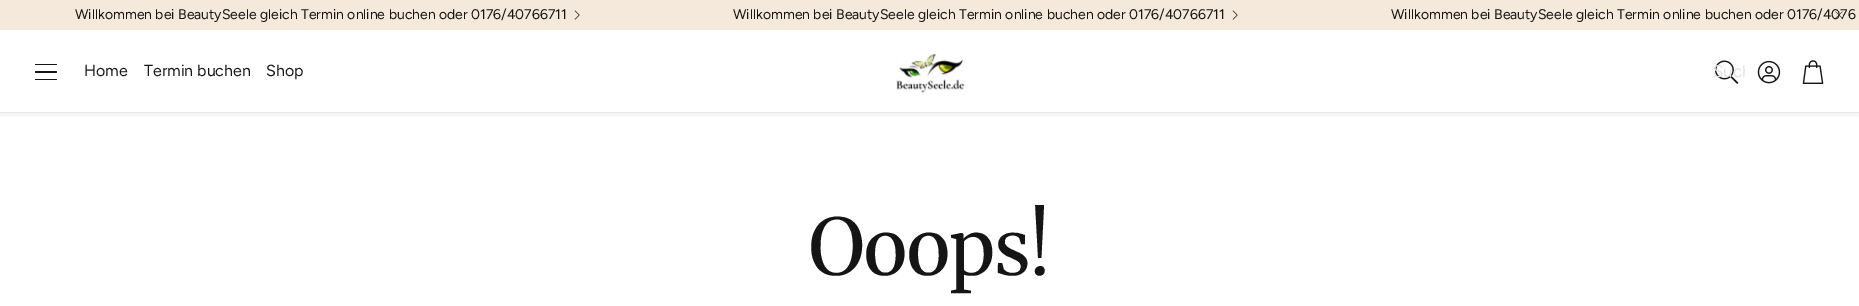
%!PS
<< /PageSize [1859 306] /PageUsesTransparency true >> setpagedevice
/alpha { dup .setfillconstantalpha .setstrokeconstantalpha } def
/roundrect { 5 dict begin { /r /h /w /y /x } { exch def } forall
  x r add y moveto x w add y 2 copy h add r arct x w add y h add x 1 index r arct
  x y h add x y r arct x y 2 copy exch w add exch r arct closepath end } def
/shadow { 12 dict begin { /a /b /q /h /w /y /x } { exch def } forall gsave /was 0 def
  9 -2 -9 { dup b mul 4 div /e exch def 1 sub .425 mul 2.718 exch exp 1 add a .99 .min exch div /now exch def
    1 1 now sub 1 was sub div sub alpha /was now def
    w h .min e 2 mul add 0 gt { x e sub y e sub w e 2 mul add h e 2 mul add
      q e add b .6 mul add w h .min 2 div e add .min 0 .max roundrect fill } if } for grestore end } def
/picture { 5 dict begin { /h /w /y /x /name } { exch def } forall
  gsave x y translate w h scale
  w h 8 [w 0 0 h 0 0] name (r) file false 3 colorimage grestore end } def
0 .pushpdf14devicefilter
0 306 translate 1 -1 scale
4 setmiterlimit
1 setgray
0 0 1859 306 rectfill
0.957 0.914 0.855 setrgbcolor
0 0 1859 30 rectfill
/Figtree-Regular [14 0 0 -14 0 0] selectfont
0.082 setgray
75 19 moveto (Willkommen bei BeautySeele gleich Termin online buchen oder 0176/40766711) show
(img1.rgb) 574 10 6 10 picture
733 19 moveto (Willkommen bei BeautySeele gleich Termin online buchen oder 0176/40766711) show
(img1.rgb) 1232 10 6 10 picture
1391 19 moveto (Willkommen bei BeautySeele gleich Termin online buchen oder 0176/4076) show
(img2.rgb) 1835 11 8 8 picture
gsave
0 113 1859 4 rectclip
0 setgray
0 33 1859 83 0 3 0.05 shadow
grestore
0.906 setgray
0 112 1859 1 rectfill
0.082 setgray
35 64 22 1 0.5 roundrect fill
35 71 22 2 1 roundrect fill
35 79 22 1 0.5 roundrect fill
/Figtree-Regular [16 0 0 -16 0 0] selectfont
84 76 moveto (Home) show
144 76 moveto (Termin buchen) show
266 76 moveto (Shop) show
(img3.rgb) 896 53 69 40 picture
(img4.rgb) 1715 60 24 24 picture
gsave
1713 62 32 19 rectclip
/Figtree-Regular [17 0 0 -17 0 0] selectfont
0.882 setgray
1713 77 moveto (Such) show
grestore
(img5.rgb) 1757 60 24 24 picture
(img6.rgb) 1802 60 22 24 picture
/Merriweather-Regular [78 0 0 -78 0 0] selectfont
809 275 moveto (Ooops!) show
.poppdf14devicefilter showpage
